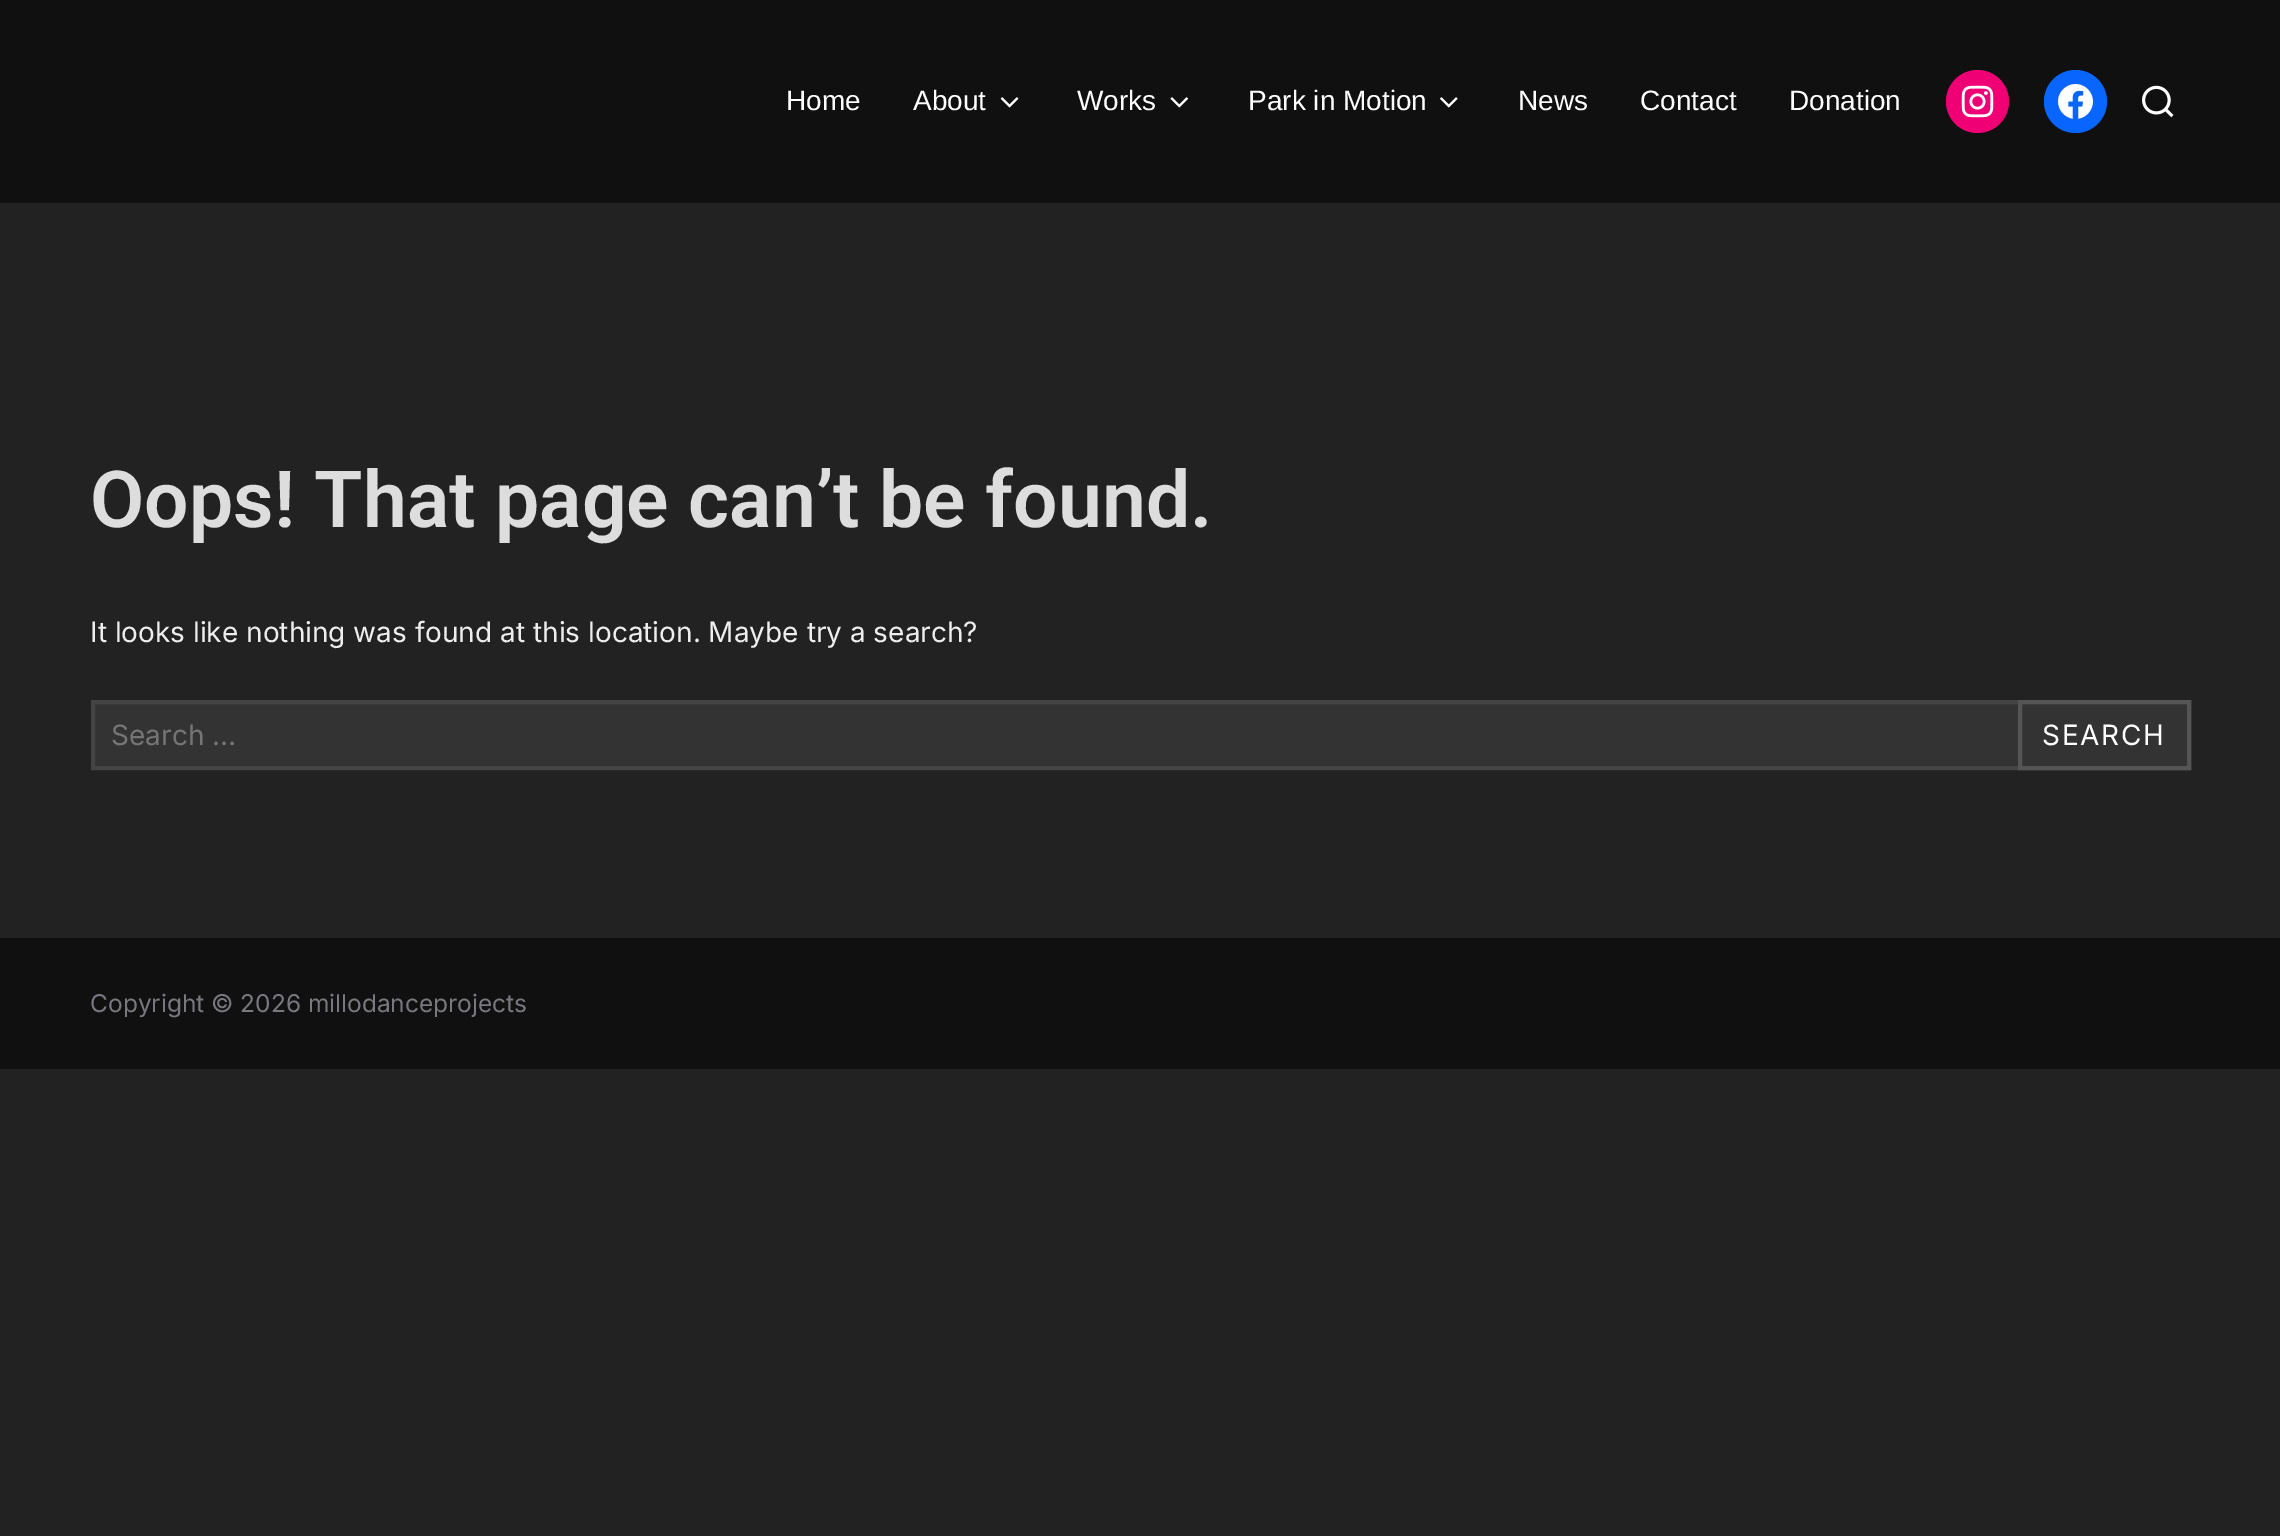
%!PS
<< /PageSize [2280 1536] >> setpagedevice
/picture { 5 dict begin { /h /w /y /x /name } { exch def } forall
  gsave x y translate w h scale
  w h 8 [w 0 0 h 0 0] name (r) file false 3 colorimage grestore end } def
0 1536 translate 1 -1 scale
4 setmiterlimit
0.133 setgray
0 0 2280 1536 rectfill
0.063 setgray
0 0 2280 203 rectfill
/LiberationSans-Regular [28 0 0 -28 0 0] selectfont
1 setgray
786 110 moveto (Home) show
913 110 moveto (About) show
(img1.rgb) 1000 97 19 11 picture
1077 110 moveto (Works) show
(img2.rgb) 1170 97 18 11 picture
1248 110 moveto (Park in Motion) show
(img3.rgb) 1440 97 18 11 picture
1518 110 moveto (News) show
1640 110 moveto (Contact) show
1789 110 moveto (Donation) show
0.941 0 0.459 setrgbcolor
newpath 1977.5 101.5 31.5 0 360 arc closepath fill
(img4.rgb) 1961 85 33 33 picture
0.031 0.4 1 setrgbcolor
newpath 2075.5 101.5 31.5 0 360 arc closepath fill
(img5.rgb) 2058 84 35 35 picture
(img6.rgb) 2142 85 32 33 picture
/Roboto-SemiBold [78.75 0 0 -78.75 0 0] selectfont
0.867 setgray
90 527 moveto (Oops! That page can’t be found.) show
/Inter-Regular [28 0 0 -28 0 0] selectfont
0.933 setgray
90 642 moveto (It looks like nothing was found at this location. Maybe try a search?) show
0.2 setgray
newpath 93 702 moveto 2189 702 lineto 2189 768 lineto 93 768 lineto closepath gsave fill grestore
0.267 setgray
4 setlinewidth
stroke
0.459 setgray
111 745 moveto (Search …) show
0.333 setgray
2020 702 169 66 rectstroke
1 setgray
2042 745 moveto 1.75 0 (SEARCH) ashow
0.063 setgray
0 938 2280 131 rectfill
/Inter-Regular [24.5 0 0 -24.5 0 0] selectfont
0.471 0.471 0.498 setrgbcolor
90 1012 moveto (Copyright © 2026 millodanceprojects) show
showpage
